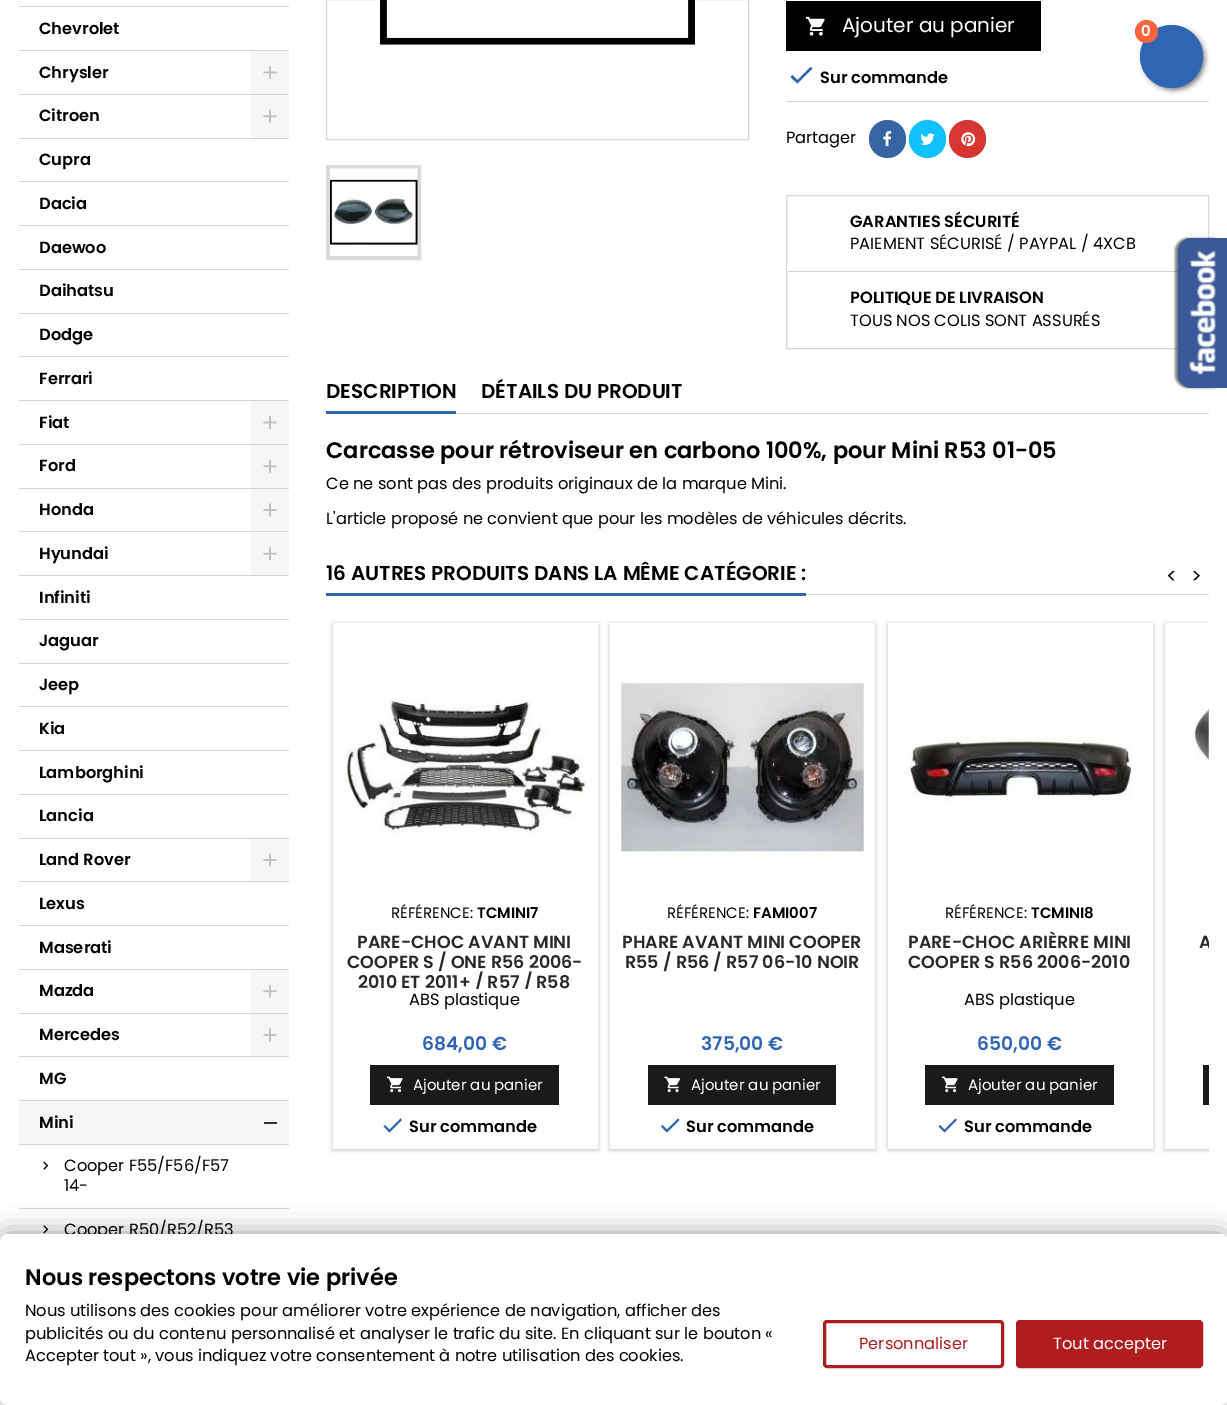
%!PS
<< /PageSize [1227 1405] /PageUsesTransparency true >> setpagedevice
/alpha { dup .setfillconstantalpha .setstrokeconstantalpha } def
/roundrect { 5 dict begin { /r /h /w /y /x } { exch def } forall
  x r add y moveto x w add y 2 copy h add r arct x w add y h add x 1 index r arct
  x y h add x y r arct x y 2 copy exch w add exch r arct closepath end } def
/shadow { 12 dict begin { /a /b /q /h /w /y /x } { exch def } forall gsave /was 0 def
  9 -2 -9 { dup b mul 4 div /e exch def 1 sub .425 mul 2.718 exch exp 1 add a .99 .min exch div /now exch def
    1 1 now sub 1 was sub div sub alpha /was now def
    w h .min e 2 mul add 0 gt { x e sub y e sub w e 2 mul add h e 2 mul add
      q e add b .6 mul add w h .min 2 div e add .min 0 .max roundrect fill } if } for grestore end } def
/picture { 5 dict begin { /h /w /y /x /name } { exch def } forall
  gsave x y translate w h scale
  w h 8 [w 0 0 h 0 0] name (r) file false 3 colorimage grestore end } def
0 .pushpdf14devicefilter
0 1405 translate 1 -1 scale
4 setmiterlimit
1 setgray
0 0 1227 1405 rectfill
0.839 0.831 0.831 setrgbcolor
19 6 270 1 rectfill
19 50 270 1 rectfill
/Poppins-SemiBold [16.25 0 0 -16.25 0 0] selectfont
0 setgray
39 34 moveto (Chevrolet) show
0.839 0.831 0.831 setrgbcolor
19 94 270 1 rectfill
0 setgray
39 78 moveto (Chrysler) show
0.965 setgray
251 51 38 43 rectfill
(img1.rgb) 263 66 14 13 picture
0.839 0.831 0.831 setrgbcolor
19 138 270 1 rectfill
0 setgray
39 121 moveto (Citroen) show
0.965 setgray
251 95 38 43 rectfill
(img2.rgb) 263 109 14 14 picture
0.839 0.831 0.831 setrgbcolor
19 181 270 1 rectfill
0 setgray
39 165 moveto (Cupra) show
0.839 0.831 0.831 setrgbcolor
19 225 270 1 rectfill
0 setgray
39 209 moveto (Dacia) show
0.839 0.831 0.831 setrgbcolor
19 269 270 1 rectfill
0 setgray
39 253 moveto (Daewoo) show
0.839 0.831 0.831 setrgbcolor
19 313 270 1 rectfill
0 setgray
39 296 moveto (Daihatsu) show
0.839 0.831 0.831 setrgbcolor
19 356 270 1 rectfill
0 setgray
39 340 moveto (Dodge) show
0.839 0.831 0.831 setrgbcolor
19 400 270 1 rectfill
0 setgray
39 384 moveto (Ferrari) show
0.839 0.831 0.831 setrgbcolor
19 444 270 1 rectfill
0 setgray
39 428 moveto (Fiat) show
0.965 setgray
251 401 38 43 rectfill
(img1.rgb) 263 416 14 13 picture
0.839 0.831 0.831 setrgbcolor
19 488 270 1 rectfill
0 setgray
39 471 moveto (Ford) show
0.965 setgray
251 445 38 43 rectfill
(img2.rgb) 263 459 14 14 picture
0.839 0.831 0.831 setrgbcolor
19 531 270 1 rectfill
0 setgray
39 515 moveto (Honda) show
0.965 setgray
251 489 38 42 rectfill
(img3.rgb) 263 503 14 14 picture
0.839 0.831 0.831 setrgbcolor
19 575 270 1 rectfill
0 setgray
39 559 moveto (Hyundai) show
0.965 setgray
251 533 38 42 rectfill
(img4.rgb) 263 547 14 14 picture
0.839 0.831 0.831 setrgbcolor
19 619 270 1 rectfill
0 setgray
39 603 moveto (Infiniti) show
0.839 0.831 0.831 setrgbcolor
19 663 270 1 rectfill
0 setgray
39 646 moveto (Jaguar) show
0.839 0.831 0.831 setrgbcolor
19 706 270 1 rectfill
0 setgray
39 690 moveto (Jeep) show
0.839 0.831 0.831 setrgbcolor
19 750 270 1 rectfill
0 setgray
39 734 moveto (Kia) show
0.839 0.831 0.831 setrgbcolor
19 794 270 1 rectfill
0 setgray
39 778 moveto (Lamborghini) show
0.839 0.831 0.831 setrgbcolor
19 838 270 1 rectfill
0 setgray
39 821 moveto (Lancia) show
0.839 0.831 0.831 setrgbcolor
19 881 270 1 rectfill
0 setgray
39 865 moveto (Land Rover) show
0.965 setgray
251 839 38 42 rectfill
(img3.rgb) 263 853 14 14 picture
0.839 0.831 0.831 setrgbcolor
19 925 270 1 rectfill
0 setgray
39 909 moveto (Lexus) show
0.839 0.831 0.831 setrgbcolor
19 969 270 1 rectfill
0 setgray
39 953 moveto (Maserati) show
0.839 0.831 0.831 setrgbcolor
19 1013 270 1 rectfill
0 setgray
39 996 moveto (Mazda) show
0.965 setgray
251 970 38 43 rectfill
(img2.rgb) 263 984 14 14 picture
0.839 0.831 0.831 setrgbcolor
19 1056 270 1 rectfill
0 setgray
39 1040 moveto (Mercedes) show
0.965 setgray
251 1014 38 42 rectfill
(img3.rgb) 263 1028 14 14 picture
0.839 0.831 0.831 setrgbcolor
19 1100 270 1 rectfill
0 setgray
39 1084 moveto (MG) show
0.965 setgray
19 1101 270 43 rectfill
0.839 0.831 0.831 setrgbcolor
19 1144 270 1 rectfill
0 setgray
39 1128 moveto (Mini) show
0.2 setgray
264 1122 13 2 rectfill
0.839 0.831 0.831 setrgbcolor
19 1208 270 1 rectfill
(img5.rgb) 43 1161 6 9 picture
/Poppins-Regular [16.25 0 0 -16.25 0 0] selectfont
0 setgray
64 1171 moveto (Cooper F55/F56/F57) show
64 1191 moveto (14-) show
(img6.rgb) 43 1225 6 9 picture
64 1235 moveto (Cooper R50/R52/R53) show
0.839 0.831 0.831 setrgbcolor
326.5 -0.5 422 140 rectstroke
(img7.rgb) 378 0 319 45 picture
0.859 setgray
4 setlinewidth
328 167 91 91 rectstroke
(img8.rgb) 330 168 88 88 picture
0 setgray
786 1 255 50 rectfill
(img9.rgb) 805 16 20 20 picture
/Poppins-Regular [20 0 0 -20 0 0] selectfont
1 setgray
842 32 moveto (Ajouter au panier) show
0.188 0.396 0.702 setrgbcolor
newpath 797.5 80 moveto 810.5 67 lineto 812.5 68.5 lineto 797.5 83.5 lineto 790.5 77 lineto 792.5 75 lineto closepath fill
/Poppins-SemiBold [16.25 0 0 -16.25 0 0] selectfont
0 setgray
820 83 moveto (Sur commande) show
0.839 0.831 0.831 setrgbcolor
786 101 423 1 rectfill
/Poppins-Regular [16.25 0 0 -16.25 0 0] selectfont
0 setgray
786 143 moveto (Partager) show
0.216 0.396 0.639 setrgbcolor
869 120 37 38 18.5 roundrect fill
(img10.rgb) 883 131 9 16 picture
0.067 0.757 1 setrgbcolor
909 120 37 38 18.5 roundrect fill
(img11.rgb) 920 133 15 12 picture
0.843 0.208 0.196 setrgbcolor
949 120 37 38 18.5 roundrect fill
(img12.rgb) 961 132 15 15 picture
0.839 0.831 0.831 setrgbcolor
1 setlinewidth
786.5 195.5 422 153 rectstroke
788 271 390 1 rectfill
/Poppins-SemiBold [16.25 0 0 -16.25 0 0] selectfont
0 setgray
850 227 moveto (GARANTIES SÉCURITÉ) show
/Poppins-Regular [16.25 0 0 -16.25 0 0] selectfont
850 249 moveto (PAIEMENT SÉCURISÉ / PAYPAL / 4XCB) show
/Poppins-SemiBold [16.25 0 0 -16.25 0 0] selectfont
850 303 moveto (POLITIQUE DE LIVRAISON) show
/Poppins-Regular [16.25 0 0 -16.25 0 0] selectfont
850 326 moveto (TOUS NOS COLIS SONT ASSURÉS) show
0.839 0.831 0.831 setrgbcolor
456 413 753 1 rectfill
0.188 0.396 0.702 setrgbcolor
326 411 130 3 rectfill
/Poppins-SemiBold [20 0 0 -20 0 0] selectfont
0 setgray
326 398 moveto (DESCRIPTION) show
481 398 moveto (DÉTAILS DU PRODUIT) show
/Poppins-SemiBold [22.5 0 0 -22.5 0 0] selectfont
326 458 moveto (Carcasse pour rétroviseur en carbono 100%, pour Mini R53 01-05) show
/Poppins-Regular [16.25 0 0 -16.25 0 0] selectfont
326 489 moveto (Ce ne sont pas des produits originaux de la marque Mini.) show
326 524 moveto (L'article proposé ne convient que pour les modèles de véhicules décrits.) show
0.839 0.831 0.831 setrgbcolor
806 594 403 1 rectfill
0.188 0.396 0.702 setrgbcolor
326 593 480 3 rectfill
/Poppins-SemiBold [20 0 0 -20 0 0] selectfont
0 setgray
326 580 moveto (16 AUTRES PRODUITS DANS LA MÊME CATÉGORIE :) show
/Poppins-Regular [20 0 0 -20 0 0] selectfont
1166 583 moveto (<) show
1191 583 moveto (>) show
333 624 265 526 0 2.5 0.24 shadow
1 setgray
333 623 265 526 rectfill
(img13.rgb) 344 698 242 135 picture
/Poppins-Regular [15 0 0 -15 0 0] selectfont
0 setgray
391 918 moveto (RÉFÉRENCE:) show
/Poppins-SemiBold [15 0 0 -15 0 0] selectfont
477 918 moveto (TCMINI7) show
/Poppins-SemiBold [17.5 0 0 -17.5 0 0] selectfont
0.161 setgray
357 948 moveto (PARE-CHOC AVANT MINI) show
347 968 moveto (COOPER S / ONE R56 2006-) show
gsave
344 931 242 58 rectclip
358 988 moveto (2010 ET 2011+ / R57 / R58) show
grestore
/Poppins-Regular [16.25 0 0 -16.25 0 0] selectfont
0 setgray
409 1005 moveto (ABS plastique) show
/Poppins-SemiBold [18.75 0 0 -18.75 0 0] selectfont
0.188 0.396 0.702 setrgbcolor
422 1050 moveto (684,00 €) show
0.106 0.102 0.106 setrgbcolor
370 1065 189 40 rectfill
(img14.rgb) 387 1076 16 17 picture
/Poppins-Regular [15 0 0 -15 0 0] selectfont
1 setgray
413 1090 moveto (Ajouter au panier) show
0.188 0.396 0.702 setrgbcolor
newpath 389.5 1129.5 moveto 400.5 1118.5 lineto 402 1120 lineto 389.5 1132.5 lineto 383.5 1126.5 lineto 385 1125 lineto closepath fill
/Poppins-SemiBold [16.25 0 0 -16.25 0 0] selectfont
0 setgray
409 1132 moveto (Sur commande) show
610 624 265 526 0 2.5 0.24 shadow
1 setgray
610 623 265 526 rectfill
(img15.rgb) 621 682 243 174 picture
/Poppins-Regular [15 0 0 -15 0 0] selectfont
0 setgray
667 918 moveto (RÉFÉRENCE:) show
/Poppins-SemiBold [15 0 0 -15 0 0] selectfont
753 918 moveto (FAMI007) show
/Poppins-SemiBold [17.5 0 0 -17.5 0 0] selectfont
0.161 setgray
622 948 moveto (PHARE AVANT MINI COOPER) show
625 968 moveto (R55 / R56 / R57 06-10 NOIR) show
/Poppins-SemiBold [18.75 0 0 -18.75 0 0] selectfont
0.188 0.396 0.702 setrgbcolor
701 1050 moveto (375,00 €) show
0.106 0.102 0.106 setrgbcolor
648 1065 188 40 rectfill
(img16.rgb) 664 1076 17 17 picture
/Poppins-Regular [15 0 0 -15 0 0] selectfont
1 setgray
691 1090 moveto (Ajouter au panier) show
0.188 0.396 0.702 setrgbcolor
newpath 667 1129.5 moveto 678 1118.5 lineto 679.5 1120 lineto 667 1132.5 lineto 661 1126.5 lineto 662.5 1125 lineto closepath fill
/Poppins-SemiBold [16.25 0 0 -16.25 0 0] selectfont
0 setgray
686 1132 moveto (Sur commande) show
888 624 265 526 0 2.5 0.24 shadow
1 setgray
888 623 265 526 rectfill
(img17.rgb) 906 736 226 68 picture
/Poppins-Regular [15 0 0 -15 0 0] selectfont
0 setgray
945 918 moveto (RÉFÉRENCE:) show
/Poppins-SemiBold [15 0 0 -15 0 0] selectfont
1031 918 moveto (TCMINI8) show
/Poppins-SemiBold [17.5 0 0 -17.5 0 0] selectfont
0.161 setgray
908 948 moveto (PARE-CHOC ARIÈRRE MINI) show
908 968 moveto (COOPER S R56 2006-2010) show
/Poppins-Regular [16.25 0 0 -16.25 0 0] selectfont
0 setgray
964 1005 moveto (ABS plastique) show
/Poppins-SemiBold [18.75 0 0 -18.75 0 0] selectfont
0.188 0.396 0.702 setrgbcolor
977 1050 moveto (650,00 €) show
0.106 0.102 0.106 setrgbcolor
925 1065 189 40 rectfill
(img14.rgb) 942 1076 16 17 picture
/Poppins-Regular [15 0 0 -15 0 0] selectfont
1 setgray
968 1090 moveto (Ajouter au panier) show
0.188 0.396 0.702 setrgbcolor
newpath 944.5 1129.5 moveto 955.5 1118.5 lineto 957 1120 lineto 944.5 1132.5 lineto 938.5 1126.5 lineto 940 1125 lineto closepath fill
/Poppins-SemiBold [16.25 0 0 -16.25 0 0] selectfont
0 setgray
964 1132 moveto (Sur commande) show
gsave
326 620 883 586 rectclip
1165 624 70 526 0 2.5 0.24 shadow
grestore
1 setgray
1165 623 44 526 rectfill
(img18.rgb) 1193 708 16 58 picture
gsave
1176 931 33 58 rectclip
/Poppins-SemiBold [17.5 0 0 -17.5 0 0] selectfont
0.161 setgray
1199 948 moveto (A) show
grestore
0.106 0.102 0.106 setrgbcolor
1203 1065 6 40 rectfill
0 setgray
1175 238 50 150 13 1 0.5 shadow
0.231 0.349 0.596 setrgbcolor
newpath 1191 238 moveto 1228 238 lineto 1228 388 lineto 1191 388 lineto 1184 388 1178 382 1178 375 curveto 1178 251 lineto 1178 244 1184 238 1191 238 curveto closepath fill
(img19.rgb) 1189 250 27 125 picture
0 setgray
1143 28 62 62 31 2.5 0.5 shadow
0.188 0.396 0.702 setrgbcolor
newpath 1171.5 56.5 31.5 0 360 arc closepath fill
0.973 0.396 0.239 setrgbcolor
newpath 1146.5 31.5 11.5 0 360 arc closepath fill
/Poppins-SemiBold [15 0 0 -15 0 0] selectfont
1 setgray
1141 36 moveto (0) show
0 setgray
0 1234 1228 171 8 12.5 0.4 shadow
1 setgray
0 1234 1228 171 8 roundrect fill
/Poppins-SemiBold [22.5 0 0 -22.5 0 0] selectfont
0 setgray
25 1285 moveto (Nous respectons votre vie privée) show
/Poppins-Regular [16.25 0 0 -16.25 0 0] selectfont
25 1316 moveto (Nous utilisons des cookies pour améliorer votre expérience de navigation, afficher des) show
25 1339 moveto (publicités ou du contenu personnalisé et analyser le trafic du site. En cliquant sur le bouton «) show
25 1361 moveto (Accepter tout », vous indiquez votre consentement à notre utilisation des cookies.) show
0.686 0.114 0.122 setrgbcolor
3 setlinewidth
824.5 1321.5 178 45 2.5 roundrect stroke
859 1349 moveto (Personnaliser) show
1017.5 1321.5 184 45 2.5 roundrect gsave fill grestore
stroke
1 setgray
1053 1349 moveto (Tout accepter) show
.poppdf14devicefilter showpage
